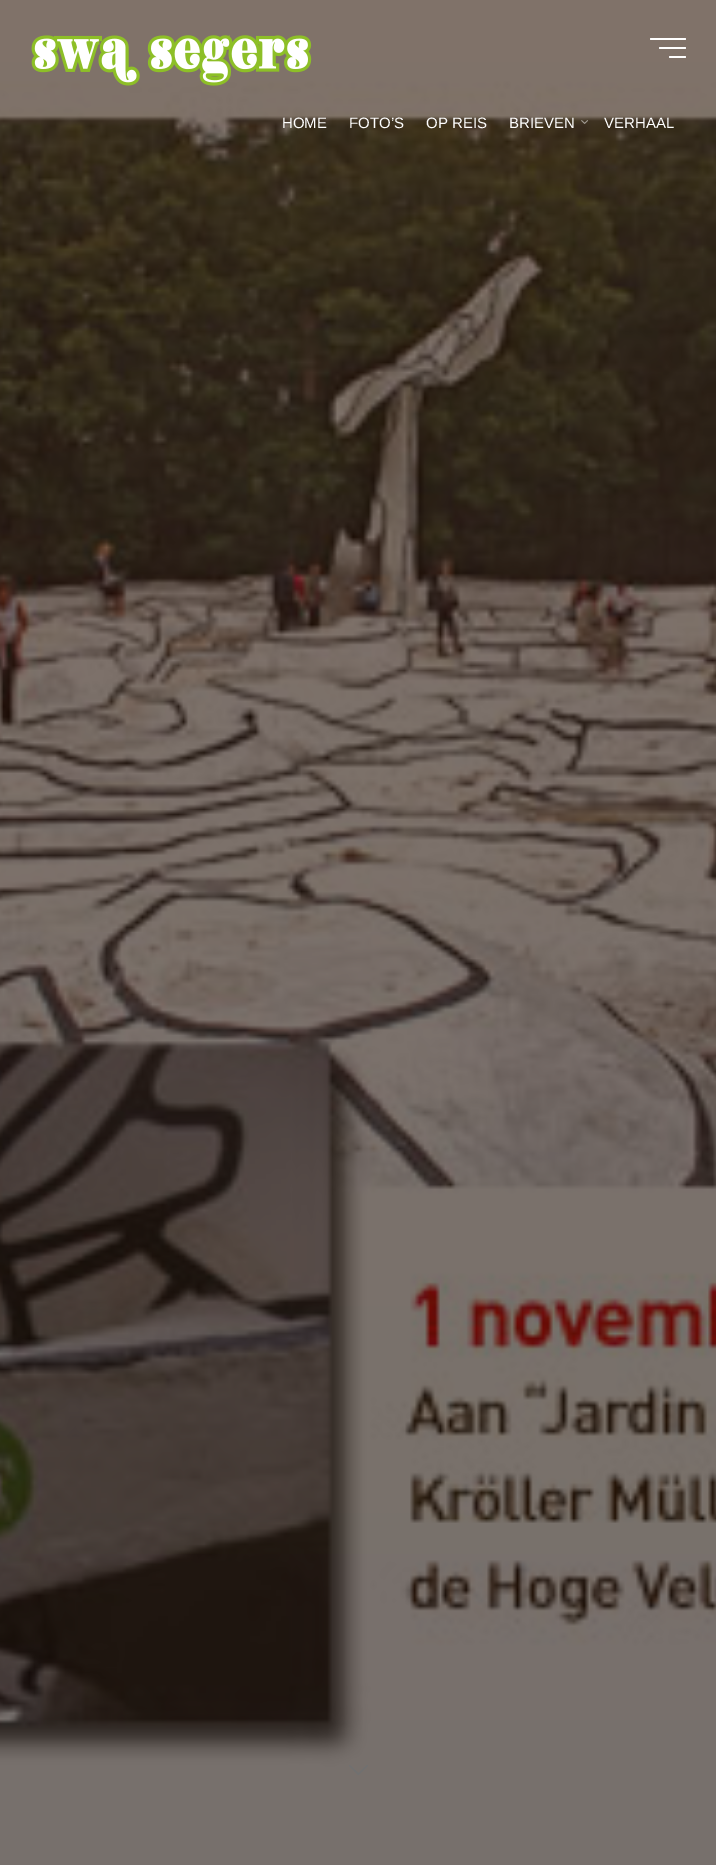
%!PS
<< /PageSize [716 1865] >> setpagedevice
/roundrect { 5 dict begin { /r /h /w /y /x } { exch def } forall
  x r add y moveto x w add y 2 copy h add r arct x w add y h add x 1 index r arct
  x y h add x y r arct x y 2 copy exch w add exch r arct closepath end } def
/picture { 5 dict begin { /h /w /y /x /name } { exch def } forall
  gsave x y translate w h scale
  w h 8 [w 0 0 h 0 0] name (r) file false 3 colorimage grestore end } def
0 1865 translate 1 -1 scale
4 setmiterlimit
1 setgray
0 0 716 1865 rectfill
(img1.rgb) 0 0 716 1865 picture
(img2.rgb) 349 1765 19 10 picture
(img3.rgb) 31 35 281 51 picture
650 38 36 2 1 roundrect fill
659 47 27 2 1 roundrect fill
669 56 17 2 1 roundrect fill
/LiberationSans-Regular [15 0 0 -15 0 0] selectfont
282 128 moveto (HOME) show
349 128 moveto (FOTO’S) show
426 128 moveto (OP REIS) show
509 128 moveto (BRIEVEN) show
(img4.rgb) 581 120 7 4 picture
604 128 moveto (VERHAAL) show
showpage
